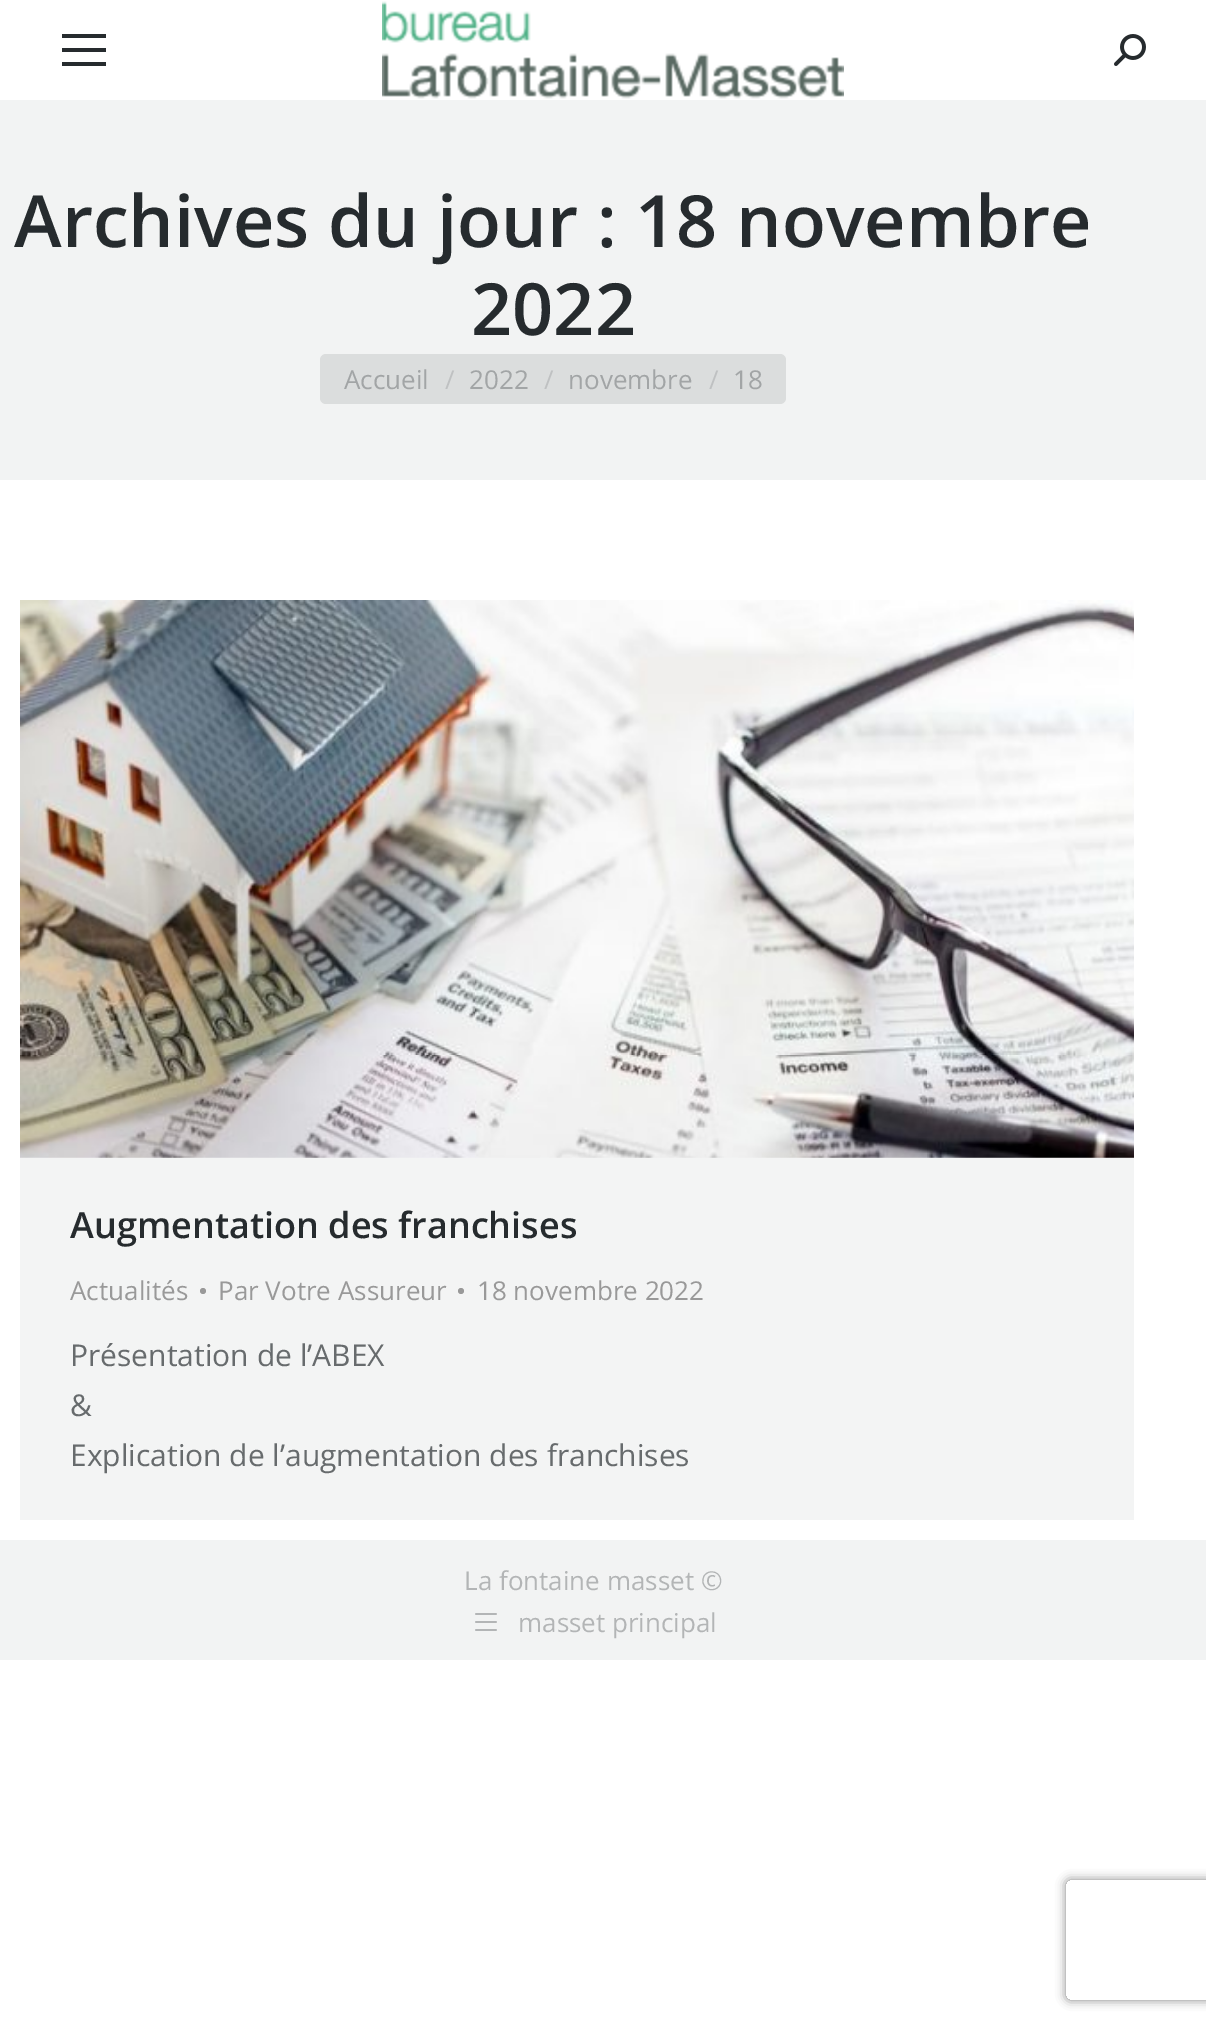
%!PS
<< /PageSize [1206 2027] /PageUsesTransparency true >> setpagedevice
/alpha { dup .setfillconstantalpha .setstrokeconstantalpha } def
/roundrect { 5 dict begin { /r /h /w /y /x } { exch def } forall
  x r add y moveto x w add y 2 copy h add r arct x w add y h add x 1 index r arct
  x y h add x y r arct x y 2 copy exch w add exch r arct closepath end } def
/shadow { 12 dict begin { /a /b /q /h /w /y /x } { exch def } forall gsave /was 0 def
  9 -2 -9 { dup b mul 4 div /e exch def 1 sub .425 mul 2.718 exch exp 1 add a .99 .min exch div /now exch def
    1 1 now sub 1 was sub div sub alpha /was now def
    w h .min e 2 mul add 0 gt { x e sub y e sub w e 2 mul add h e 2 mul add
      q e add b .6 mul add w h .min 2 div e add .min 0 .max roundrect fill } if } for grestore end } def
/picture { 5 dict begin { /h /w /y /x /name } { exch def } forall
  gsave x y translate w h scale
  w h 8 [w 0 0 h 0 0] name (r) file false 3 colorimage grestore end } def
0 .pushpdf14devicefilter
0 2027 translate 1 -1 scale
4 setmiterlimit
1 setgray
0 0 1206 2027 rectfill
0.149 0.169 0.18 setrgbcolor
62 34 44 4 rectfill
62 48 44 4 rectfill
62 62 44 4 rectfill
(img1.rgb) 382 1 462 98 picture
(img2.rgb) 1114 34 32 32 picture
0.949 0.953 0.953 setrgbcolor
0 100 1206 380 rectfill
/OpenSans-SemiBold [72 0 0 -72 0 0] selectfont
0.149 0.169 0.18 setrgbcolor
14 247 moveto (Archives du jour : 18 novembre) show
471 335 moveto (2022) show
0.859 0.867 0.867 setrgbcolor
320 354 466 50 6 roundrect fill
/OpenSans-Regular [26 0 0 -26 0 0] selectfont
0.635 0.647 0.651 setrgbcolor
344 389 moveto (Accueil) show
0.749 0.757 0.761 setrgbcolor
445 389 moveto (/) show
0.635 0.647 0.651 setrgbcolor
469 389 moveto (2022) show
0.749 0.757 0.761 setrgbcolor
544 389 moveto (/) show
0.635 0.647 0.651 setrgbcolor
568 389 moveto (novembre) show
0.749 0.757 0.761 setrgbcolor
709 389 moveto (/) show
0.635 0.647 0.651 setrgbcolor
733 389 moveto (18) show
0.953 0.957 0.957 setrgbcolor
20 1157 1114 363 rectfill
(img3.rgb) 20 600 1114 558 picture
/OpenSans-SemiBold [36 0 0 -36 0 0] selectfont
0.149 0.169 0.18 setrgbcolor
70 1238 moveto (Augmentation des franchises) show
/OpenSans-Regular [26 0 0 -26 0 0] selectfont
0.6 setgray
70 1300 moveto (Actualités) show
newpath 203 1291 3 0 360 arc closepath fill
218 1300 moveto (Par Votre Assureur) show
newpath 461 1291 3 0 360 arc closepath fill
477 1300 moveto (18 novembre 2022) show
/OpenSans-Regular [30 0 0 -30 0 0] selectfont
0.404 0.42 0.427 setrgbcolor
70 1366 moveto (Présentation de l’ABEX) show
70 1416 moveto (&) show
70 1466 moveto (Explication de l’augmentation des franchises) show
0.949 0.953 0.953 setrgbcolor
0 1540 1206 120 rectfill
/OpenSans-Regular [26 0 0 -26 0 0] selectfont
0.702 0.71 0.714 setrgbcolor
464 1590 moveto (La fontaine masset ©) show
(img4.rgb) 475 1613 22 18 picture
518 1632 moveto (masset principal) show
gsave
newpath 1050 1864 moveto 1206 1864 lineto 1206 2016 lineto 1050 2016 lineto closepath 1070 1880 moveto 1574 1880 lineto 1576 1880 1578 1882 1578 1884 curveto 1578 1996 lineto 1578 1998 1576 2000 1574 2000 curveto 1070 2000 lineto 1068 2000 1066 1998 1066 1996 curveto 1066 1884 lineto 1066 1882 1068 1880 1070 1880 curveto closepath eoclip newpath
0.502 setgray
1066 1880 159 120 4 5 1 shadow
grestore
.poppdf14devicefilter showpage
